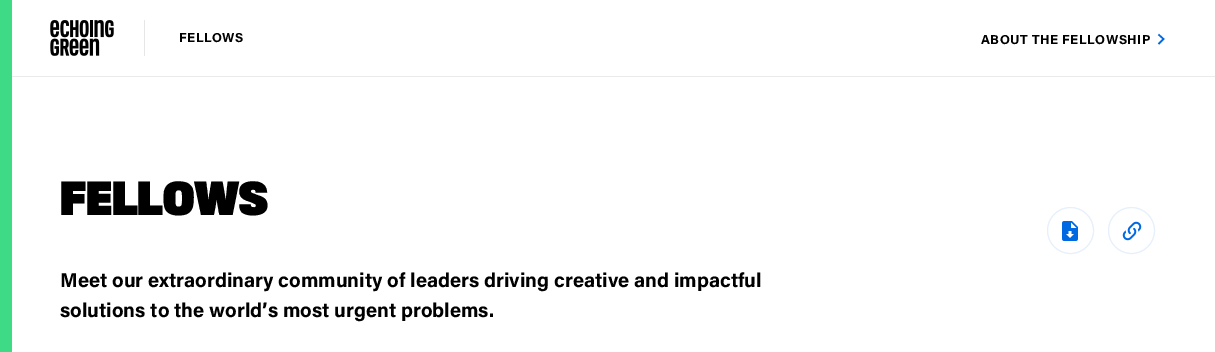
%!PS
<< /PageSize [1215 352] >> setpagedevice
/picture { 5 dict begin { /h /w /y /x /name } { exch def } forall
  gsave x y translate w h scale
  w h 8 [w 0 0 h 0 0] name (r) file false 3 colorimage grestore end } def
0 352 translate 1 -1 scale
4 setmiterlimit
1 setgray
0 0 1215 352 rectfill
0.247 0.855 0.522 setrgbcolor
0 0 12 352 rectfill
0.922 setgray
12 76 1203 1 rectfill
(img1.rgb) 50 20 64 36 picture
0.902 setgray
144 20 1 36 rectfill
/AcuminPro-Bold [13 0 0 -13 0 0] selectfont
0 setgray
179 42 moveto 0.5 0 (FELLOWS) ashow
981 44 moveto 0.5 0 (ABOUT THE FELLOWSHIP) ashow
0 0.412 0.882 setrgbcolor
1.5 setlinewidth
newpath 1158.5 44 moveto 1163.5 39 lineto 1158.5 34.5 lineto stroke
/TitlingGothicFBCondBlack-Black [42 0 0 -42 0 0] selectfont
0 setgray
60 215 moveto (FELLOWS) show
/AcuminPro-Bold [20 0 0 -20 0 0] selectfont
60 287 moveto (Meet our extraordinary community of leaders driving creative and impactful) show
60 317 moveto (solutions to the world’s most urgent problems.) show
(img2.rgb) 1062 221 16 20 picture
0.902 0.941 0.988 setrgbcolor
1 setlinewidth
newpath 1070.5 230.5 23 0 360 arc closepath stroke
(img3.rgb) 1122 221 20 20 picture
newpath 1131.5 230.5 23 0 360 arc closepath stroke
showpage
